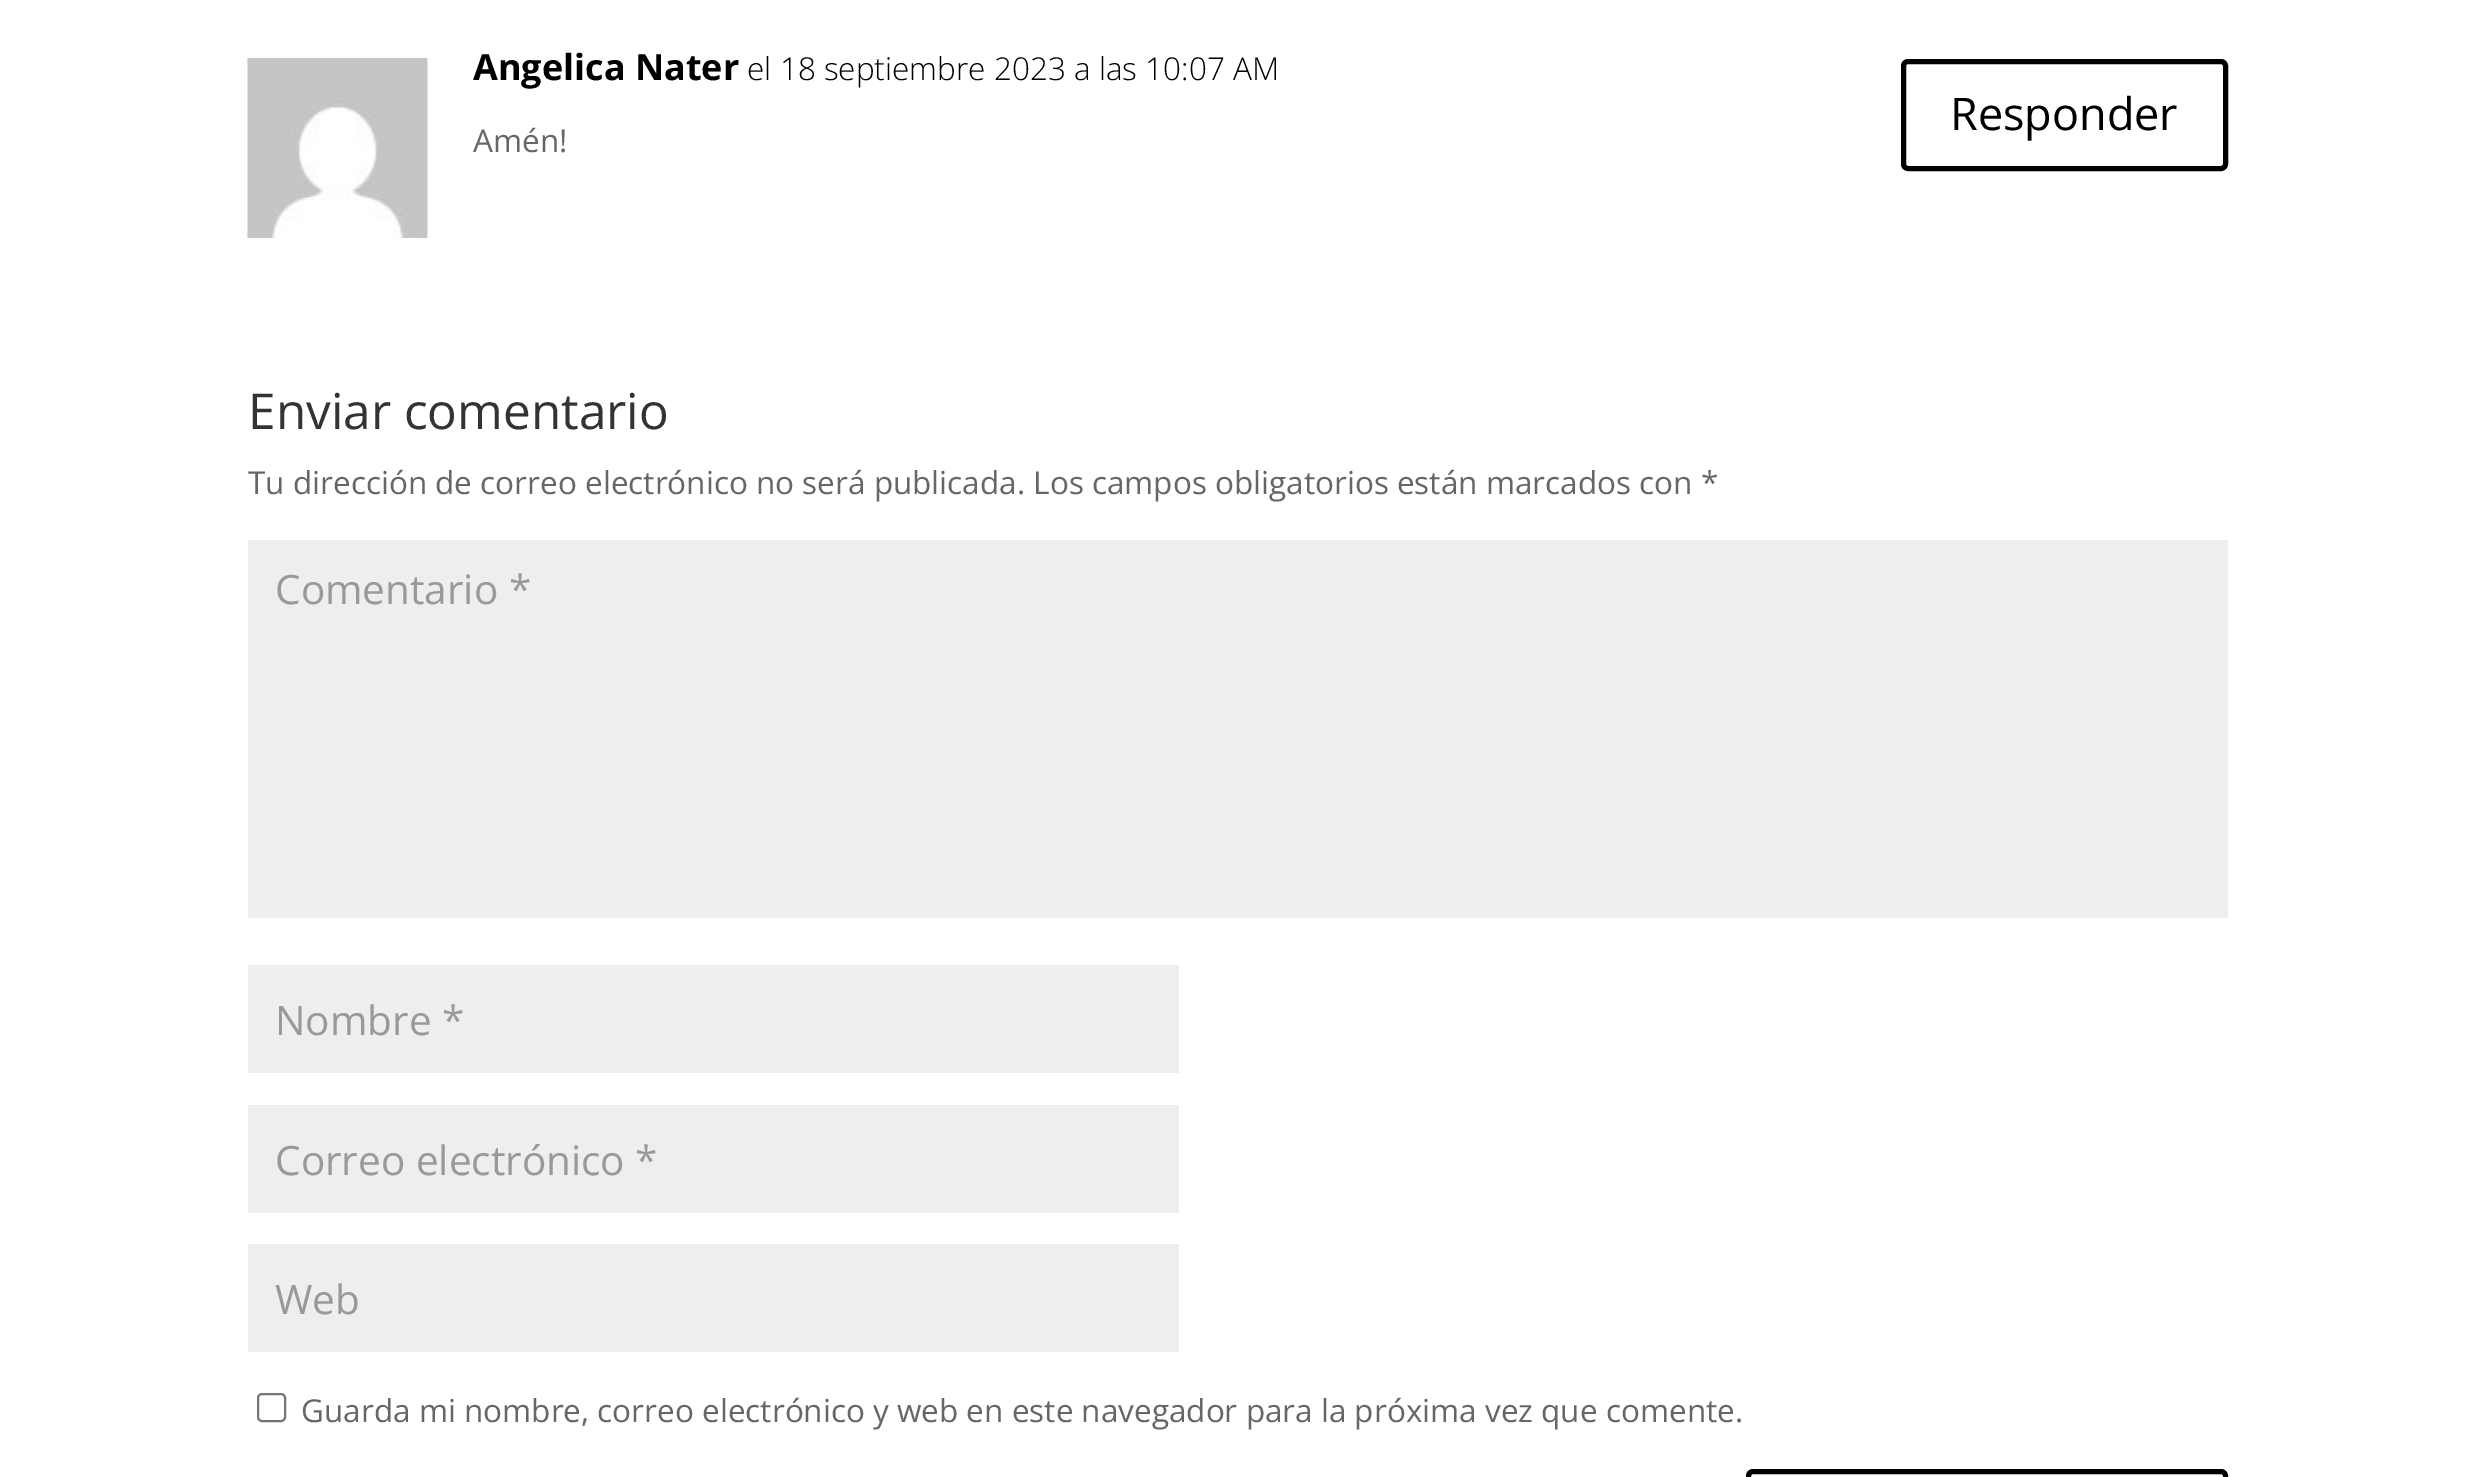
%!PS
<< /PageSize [2475 1477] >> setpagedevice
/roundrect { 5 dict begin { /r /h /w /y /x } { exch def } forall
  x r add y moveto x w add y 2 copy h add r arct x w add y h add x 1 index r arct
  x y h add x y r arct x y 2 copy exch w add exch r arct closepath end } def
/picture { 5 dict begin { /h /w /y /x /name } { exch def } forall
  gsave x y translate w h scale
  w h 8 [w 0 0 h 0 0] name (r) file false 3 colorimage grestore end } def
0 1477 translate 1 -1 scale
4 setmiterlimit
1 setgray
0 0 2475 1477 rectfill
(img1.rgb) 247 58 181 180 picture
/OpenSans-Bold [36 0 0 -36 0 0] selectfont
0 setgray
473 80 moveto (Angelica Nater) show
/OpenSans-Light [31.5 0 0 -31.5 0 0] selectfont
747 80 moveto (el 18 septiembre 2023 a las 10:07 AM) show
/OpenSans-Regular [31.5 0 0 -31.5 0 0] selectfont
0.4 setgray
473 152 moveto (Amén!) show
0 setgray
5 setlinewidth
1903.5 61.5 322 107 4.5 roundrect stroke
/OpenSans-Regular [45 0 0 -45 0 0] selectfont
1950 130 moveto (Responder) show
/OpenSans-Regular [49.5 0 0 -49.5 0 0] selectfont
0.2 setgray
248 429 moveto (Enviar comentario) show
/OpenSans-Regular [31.5 0 0 -31.5 0 0] selectfont
0.4 setgray
248 494 moveto (Tu dirección de correo electrónico no será publicada. Los campos obligatorios están marcados con *) show
0.933 setgray
248 540 1980 378 rectfill
/OpenSans-Regular [40.5 0 0 -40.5 0 0] selectfont
0.6 setgray
275 604 moveto (Comentario *) show
0.933 setgray
248 965 931 108 rectfill
0.6 setgray
275 1035 moveto (Nombre *) show
0.933 setgray
248 1105 931 108 rectfill
0.6 setgray
275 1175 moveto (Correo electrónico *) show
0.933 setgray
248 1244 931 108 rectfill
0.6 setgray
275 1314 moveto (Web) show
0.463 setgray
2 setlinewidth
258 1394 27 27 4 roundrect stroke
/OpenSans-Regular [31.5 0 0 -31.5 0 0] selectfont
0.4 setgray
301 1422 moveto (Guarda mi nombre, correo electrónico y web en este navegador para la próxima vez que comente.) show
0 setgray
5 setlinewidth
1748.5 1471.5 477 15 4.5 roundrect stroke
showpage
